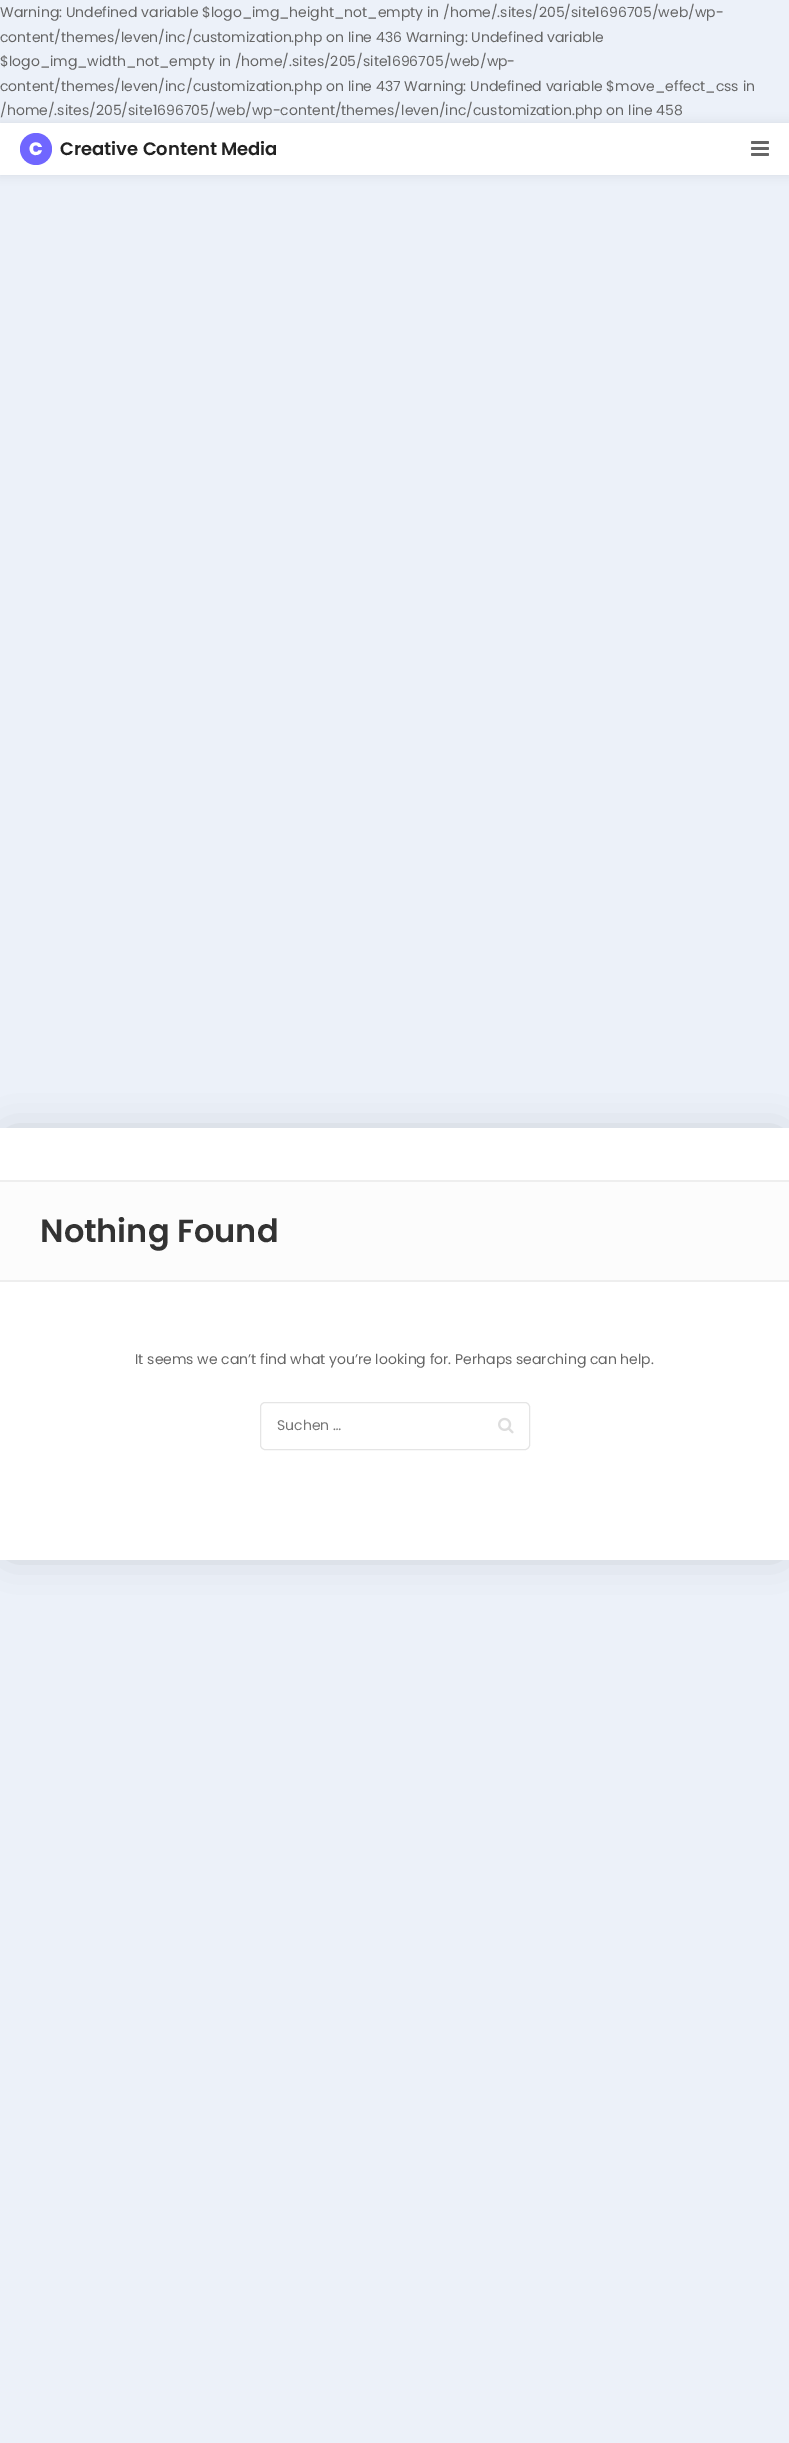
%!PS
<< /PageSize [789 2443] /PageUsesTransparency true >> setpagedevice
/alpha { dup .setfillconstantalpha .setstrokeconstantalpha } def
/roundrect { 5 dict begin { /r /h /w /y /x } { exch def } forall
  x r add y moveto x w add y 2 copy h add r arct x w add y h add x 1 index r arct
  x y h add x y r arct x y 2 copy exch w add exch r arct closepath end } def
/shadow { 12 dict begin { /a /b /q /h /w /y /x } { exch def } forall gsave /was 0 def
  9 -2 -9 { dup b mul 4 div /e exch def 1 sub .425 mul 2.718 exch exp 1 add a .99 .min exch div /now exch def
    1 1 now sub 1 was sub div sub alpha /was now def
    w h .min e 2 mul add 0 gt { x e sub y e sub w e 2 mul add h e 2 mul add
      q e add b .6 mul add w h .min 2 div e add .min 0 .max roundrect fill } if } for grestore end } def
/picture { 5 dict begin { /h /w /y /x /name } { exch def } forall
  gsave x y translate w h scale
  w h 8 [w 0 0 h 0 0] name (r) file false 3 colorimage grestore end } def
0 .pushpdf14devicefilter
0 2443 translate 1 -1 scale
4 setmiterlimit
0.925 0.945 0.976 setrgbcolor
0 0 789 2443 rectfill
/Poppins-Regular [14 0 0 -14 0 0] selectfont
0.4 setgray
0 17 moveto (Warning: Undefined variable $logo_img_height_not_empty in /home/.sites/205/site1696705/web/wp-) show
0 42 moveto (content/themes/leven/inc/customization.php on line 436 Warning: Undefined variable) show
0 66 moveto ($logo_img_width_not_empty in /home/.sites/205/site1696705/web/wp-) show
0 91 moveto (content/themes/leven/inc/customization.php on line 437 Warning: Undefined variable $move_effect_css in) show
0 115 moveto (/home/.sites/205/site1696705/web/wp-content/themes/leven/inc/customization.php on line 458) show
0 setgray
10 1138 769 412 0 20 0.2 shadow
1 setgray
0 1128 789 432 rectfill
0 setgray
0 123 789 52 0 5 0.08 shadow
1 setgray
0 123 789 52 rectfill
0.439 0.4 1 setrgbcolor
newpath 36 149 16 0 360 arc closepath fill
/Poppins-ExtraBold [18 0 0 -18 0 0] selectfont
1 setgray
29 155 moveto (C) show
/Poppins-SemiBold [18 0 0 -18 0 0] selectfont
0.133 setgray
60 155 moveto (Creative Content Media) show
(img1.rgb) 751 141 18 15 picture
0.988 setgray
0 1182 789 98 rectfill
0.933 setgray
0 1180 789 2 rectfill
0 1280 789 2 rectfill
/Poppins-SemiBold [32 0 0 -32 0 0] selectfont
0.2 setgray
40 1242 moveto (Nothing Found) show
/Poppins-Regular [14 0 0 -14 0 0] selectfont
0.4 setgray
135 1364 moveto (It seems we can’t find what you’re looking for. Perhaps searching can help.) show
0.898 setgray
260.5 1402.5 269 47 4.5 roundrect stroke
0.459 setgray
277 1430 moveto (Suchen …) show
(img2.rgb) 498 1417 16 17 picture
.poppdf14devicefilter showpage
